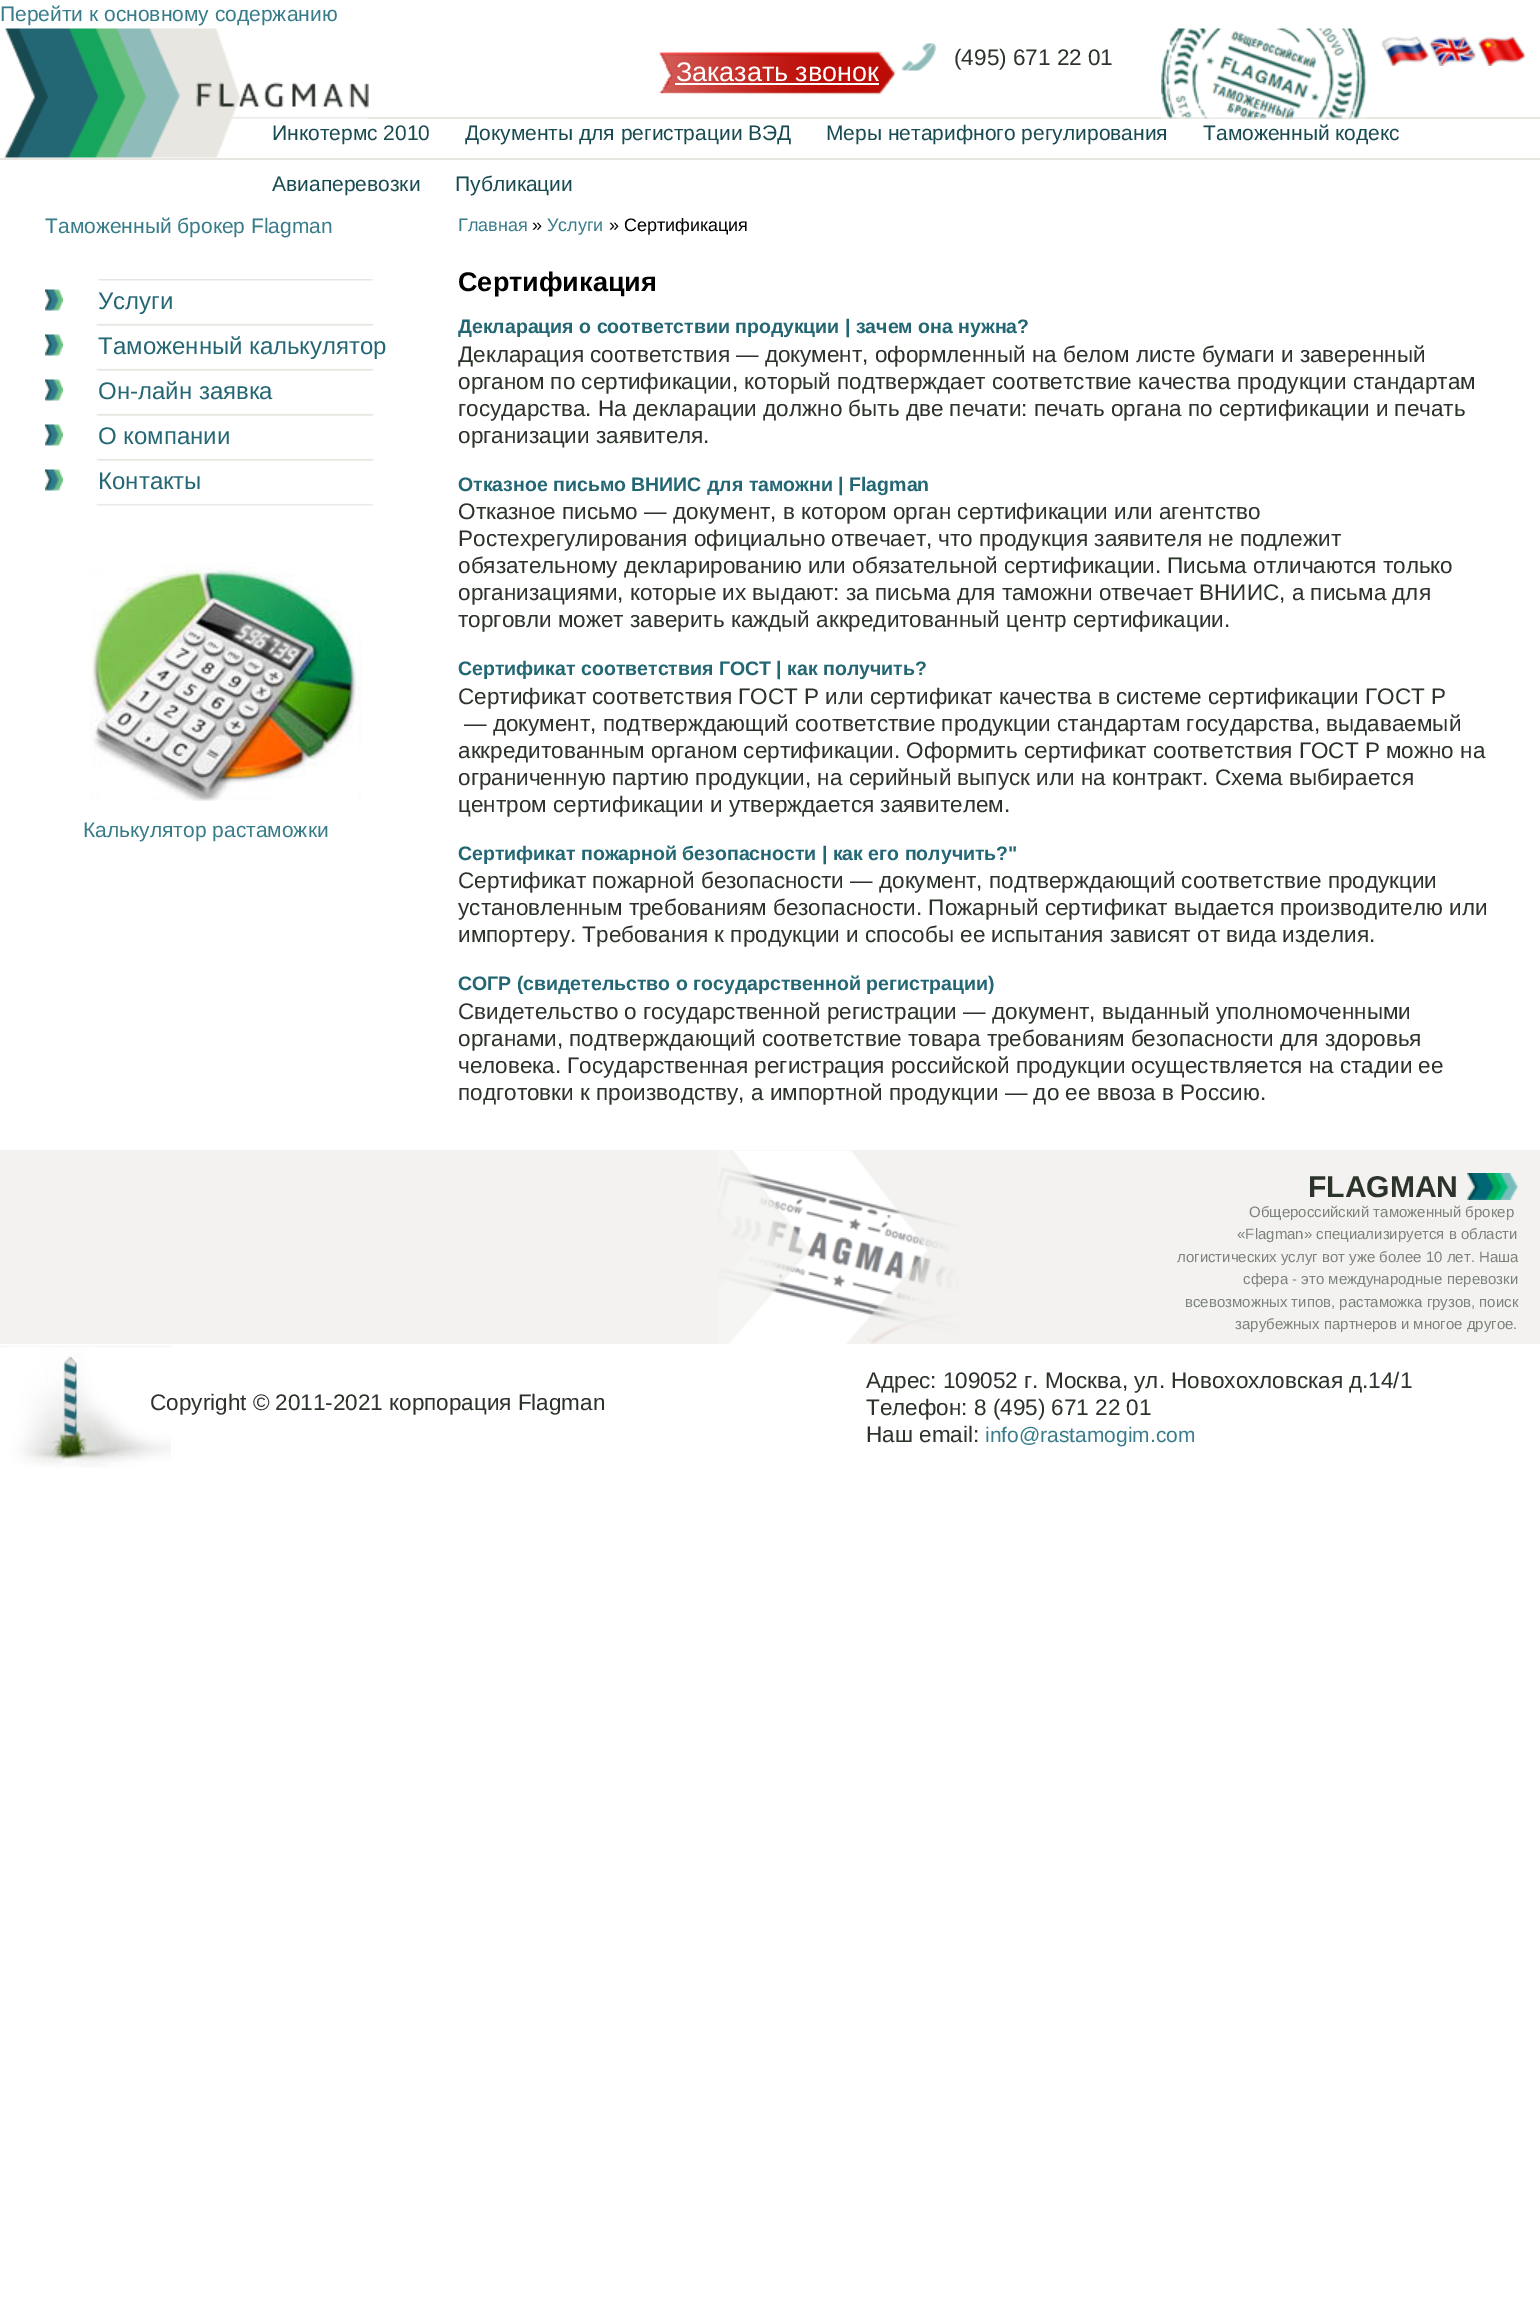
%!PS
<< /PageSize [1540 2320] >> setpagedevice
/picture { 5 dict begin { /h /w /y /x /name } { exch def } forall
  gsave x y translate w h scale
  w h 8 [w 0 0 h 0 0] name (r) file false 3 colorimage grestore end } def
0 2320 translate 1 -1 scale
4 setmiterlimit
1 setgray
0 0 1540 2320 rectfill
/LiberationSans-Regular [21 0 0 -21 0 0] selectfont
0.22 0.486 0.537 setrgbcolor
0 21 moveto (Перейти к основному содержанию) show
0.906 0.902 0.882 setrgbcolor
0 158 1540 2 rectfill
(img1.rgb) 0 28 369 130 picture
(img2.rgb) 901 43 35 28 picture
/LiberationSans-Regular [22.5 0 0 -22.5 0 0] selectfont
0.173 0.2 0.169 setrgbcolor
954 65 moveto (\(495\) 671 22 01) show
0.906 0.902 0.882 setrgbcolor
369 117 1171 2 rectfill
(img3.rgb) 1161 28 206 91 picture
(img4.rgb) 1381 36 49 30 picture
(img5.rgb) 1429 36 47 30 picture
(img6.rgb) 1477 36 49 30 picture
(img7.rgb) 659 51 237 44 picture
/LiberationSans-Regular [27 0 0 -27 0 0] selectfont
1 setgray
676 81 moveto (Заказать звонок) show
675 83 204 2 rectfill
/LiberationSans-Regular [21 0 0 -21 0 0] selectfont
0.094 0.29 0.318 setrgbcolor
272 140 moveto (Инкотермс 2010) show
465 140 moveto (Документы для регистрации ВЭД) show
826 140 moveto (Меры нетарифного регулирования) show
1203 140 moveto (Таможенный кодекс) show
272 191 moveto (Авиаперевозки) show
455 191 moveto (Публикации) show
0.22 0.486 0.537 setrgbcolor
45 233 moveto (Таможенный брокер Flagman) show
(img8.rgb) 45 289 18 22 picture
(img9.rgb) 96 279 278 47 picture
/LiberationSans-Regular [24 0 0 -24 0 0] selectfont
0.141 0.404 0.455 setrgbcolor
98 309 moveto (Услуги) show
(img8.rgb) 45 334 18 22 picture
(img10.rgb) 96 324 278 47 picture
98 354 moveto (Таможенный калькулятор) show
(img8.rgb) 45 379 18 22 picture
(img10.rgb) 96 369 278 47 picture
98 399 moveto (Он-лайн заявка) show
(img8.rgb) 45 424 18 22 picture
(img10.rgb) 96 414 278 47 picture
98 444 moveto (О компании) show
(img8.rgb) 45 469 18 22 picture
(img10.rgb) 96 459 278 47 picture
98 489 moveto (Контакты) show
(img11.rgb) 90 562 272 239 picture
/LiberationSans-Regular [21 0 0 -21 0 0] selectfont
0.22 0.486 0.537 setrgbcolor
83 837 moveto (Калькулятор растаможки) show
/LiberationSans-Regular [18 0 0 -18 0 0] selectfont
458 231 moveto (Главная) show
0 setgray
532 231 moveto (») show
0.22 0.486 0.537 setrgbcolor
547 231 moveto (Услуги) show
0 setgray
609 231 moveto (» Сертификация) show
/LiberationSans-Bold [27 0 0 -27 0 0] selectfont
458 291 moveto (Сертификация) show
/LiberationSans-Bold [19.5 0 0 -19.5 0 0] selectfont
0.141 0.404 0.455 setrgbcolor
458 333 moveto (Декларация о соответствии продукции | зачем она нужна?) show
/LiberationSans-Regular [22.5 0 0 -22.5 0 0] selectfont
0.173 0.2 0.169 setrgbcolor
458 362 moveto (Декларация соответствия — документ, оформленный на белом листе бумаги и заверенный) show
458 389 moveto (органом по сертификации, который подтверждает соответствие качества продукции стандартам) show
458 416 moveto (государства. На декларации должно быть две печати: печать органа по сертификации и печать) show
458 443 moveto (организации заявителя.) show
/LiberationSans-Bold [19.5 0 0 -19.5 0 0] selectfont
0.141 0.404 0.455 setrgbcolor
458 491 moveto (Отказное письмо ВНИИС для таможни | Flagman) show
/LiberationSans-Regular [22.5 0 0 -22.5 0 0] selectfont
0.173 0.2 0.169 setrgbcolor
458 519 moveto (Отказное письмо — документ, в котором орган сертификации или агентство) show
458 546 moveto (Ростехрегулирования официально отвечает, что продукция заявителя не подлежит) show
458 573 moveto (обязательному декларированию или обязательной сертификации. Письма отличаются только) show
458 600 moveto (организациями, которые их выдают: за письма для таможни отвечает ВНИИС, а письма для) show
458 627 moveto (торговли может заверить каждый аккредитованный центр сертификации.) show
/LiberationSans-Bold [19.5 0 0 -19.5 0 0] selectfont
0.141 0.404 0.455 setrgbcolor
458 675 moveto (Сертификат соответствия ГОСТ | как получить?) show
/LiberationSans-Regular [22.5 0 0 -22.5 0 0] selectfont
0.173 0.2 0.169 setrgbcolor
458 704 moveto (Сертификат соответствия ГОСТ Р или сертификат качества в системе сертификации ГОСТ Р) show
464 731 moveto (— документ, подтверждающий соответствие продукции стандартам государства, выдаваемый) show
458 758 moveto (аккредитованным органом сертификации. Оформить сертификат соответствия ГОСТ Р можно на) show
458 785 moveto (ограниченную партию продукции, на серийный выпуск или на контракт. Схема выбирается) show
458 812 moveto (центром сертификации и утверждается заявителем.) show
/LiberationSans-Bold [19.5 0 0 -19.5 0 0] selectfont
0.141 0.404 0.455 setrgbcolor
458 860 moveto (Сертификат пожарной безопасности | как его получить?") show
/LiberationSans-Regular [22.5 0 0 -22.5 0 0] selectfont
0.173 0.2 0.169 setrgbcolor
458 888 moveto (Сертификат пожарной безопасности — документ, подтверждающий соответствие продукции) show
458 915 moveto (установленным требованиям безопасности. Пожарный сертификат выдается производителю или) show
458 942 moveto (импортеру. Требования к продукции и способы ее испытания зависят от вида изделия.) show
/LiberationSans-Bold [19.5 0 0 -19.5 0 0] selectfont
0.141 0.404 0.455 setrgbcolor
458 990 moveto (СОГР \(свидетельство о государственной регистрации\)) show
/LiberationSans-Regular [22.5 0 0 -22.5 0 0] selectfont
0.173 0.2 0.169 setrgbcolor
458 1019 moveto (Свидетельство о государственной регистрации — документ, выданный уполномоченными) show
458 1046 moveto (органами, подтверждающий соответствие товара требованиям безопасности для здоровья) show
458 1073 moveto (человека. Государственная регистрация российской продукции осуществляется на стадии ее) show
458 1100 moveto (подготовки к производству, а импортной продукции — до ее ввоза в Россию.) show
0.953 0.949 0.941 setrgbcolor
0 1150 1540 194 rectfill
(img12.rgb) 718 1150 241 194 picture
(img13.rgb) 1467 1173 51 27 picture
/LiberationSans-Bold [30 0 0 -30 0 0] selectfont
0.173 0.2 0.169 setrgbcolor
1308 1197 moveto (FLAGMAN) show
/LiberationSans-Regular [15 0 0 -15 0 0] selectfont
0.482 0.514 0.478 setrgbcolor
1249 1217 moveto (Общероссийский таможенный брокер) show
1237 1239 moveto («Flagman» специализируется в области) show
1177 1262 moveto (логистических услуг вот уже более 10 лет. Наша) show
1243 1284 moveto (сфера - это международные перевозки) show
1185 1307 moveto (всевозможных типов, растаможка грузов, поиск) show
1235 1329 moveto (зарубежных партнеров и многое другое.) show
(img14.rgb) 0 1345 171 123 picture
/LiberationSans-Regular [22.5 0 0 -22.5 0 0] selectfont
0.173 0.2 0.169 setrgbcolor
150 1410 moveto (Copyright © 2011-2021 корпорация Flagman) show
866 1388 moveto (Адрес: 109052 г. Москва, ул. Новохохловская д.14/1) show
866 1415 moveto (Телефон: 8 \(495\) 671 22 01) show
866 1442 moveto (Наш email:) show
/LiberationSans-Regular [21 0 0 -21 0 0] selectfont
0.22 0.486 0.537 setrgbcolor
985 1442 moveto (info@rastamogim.com) show
showpage
